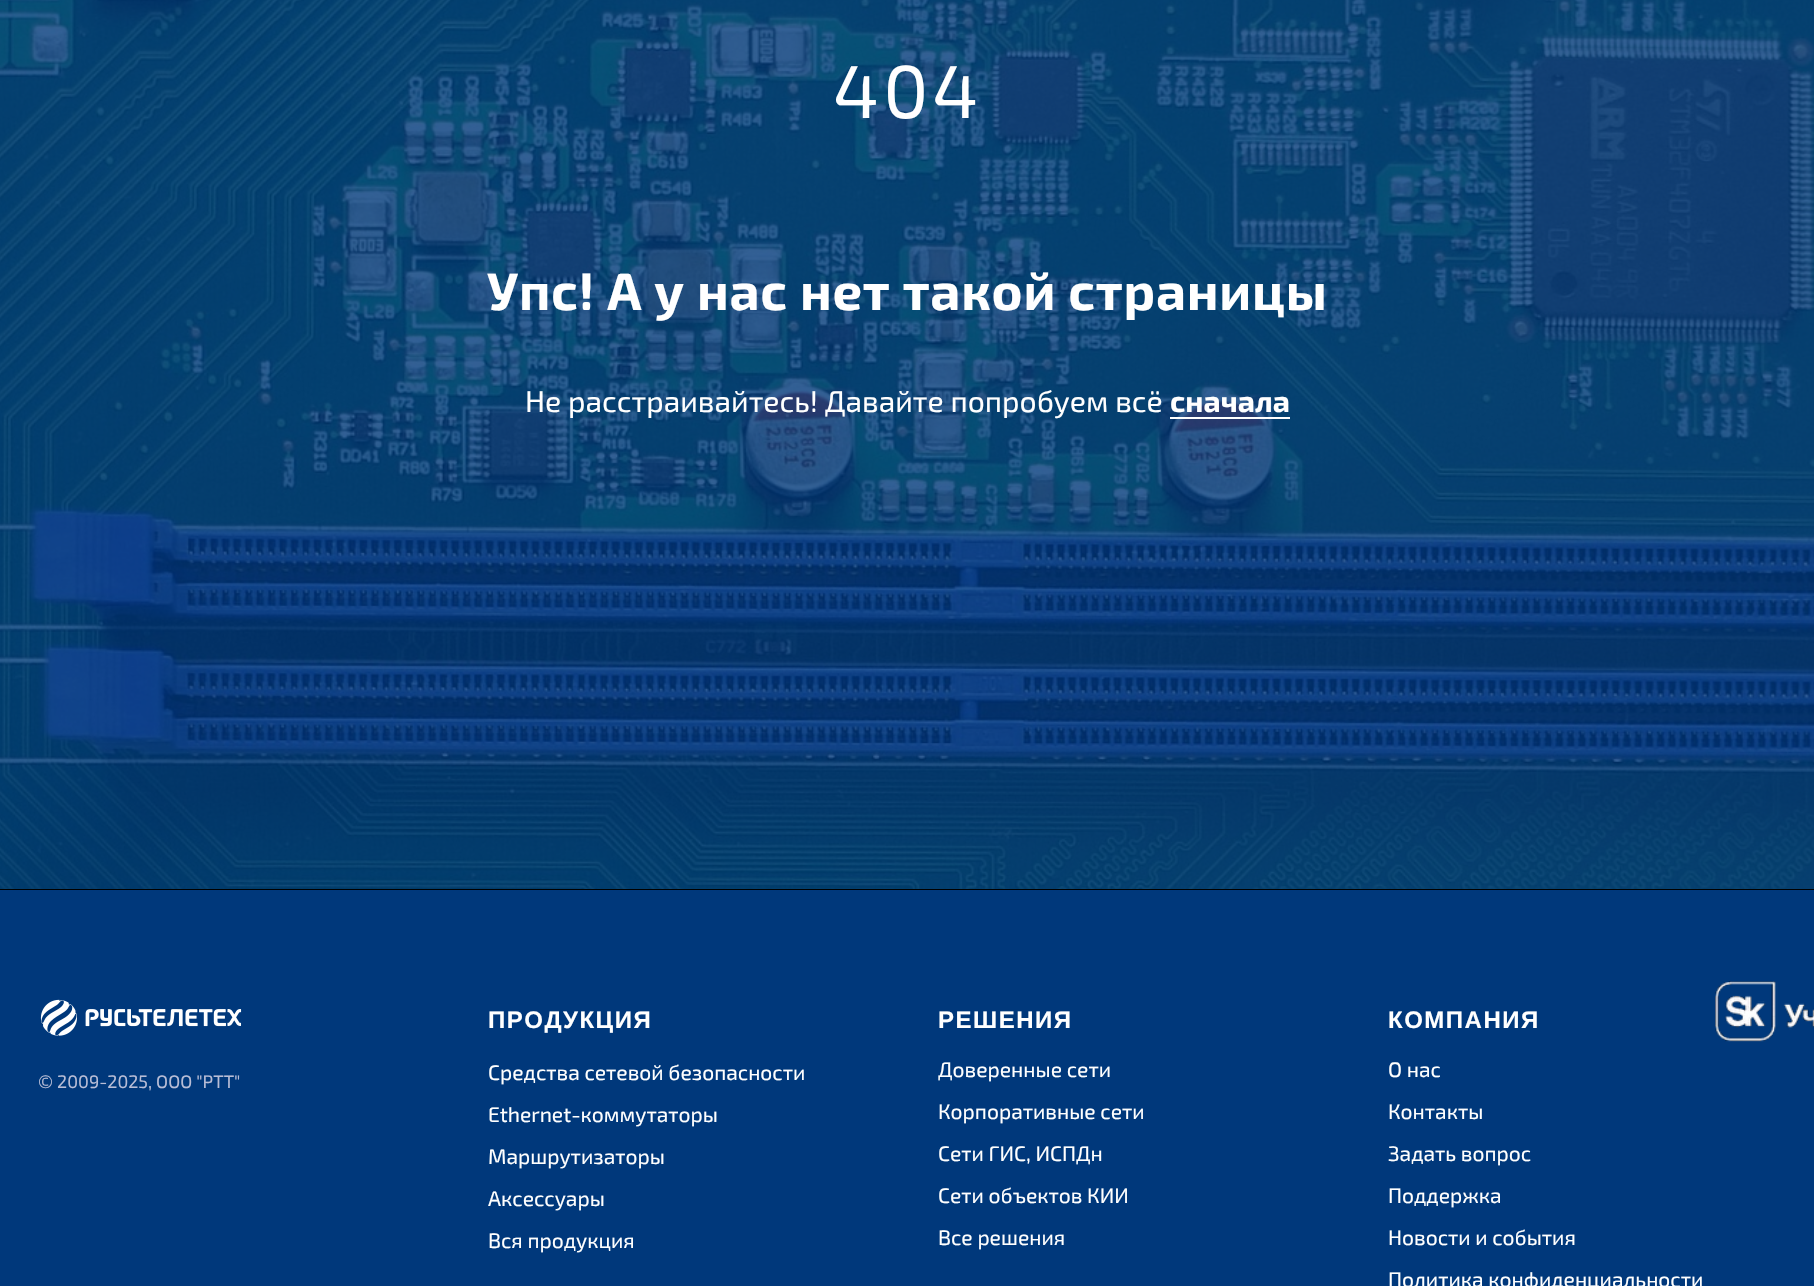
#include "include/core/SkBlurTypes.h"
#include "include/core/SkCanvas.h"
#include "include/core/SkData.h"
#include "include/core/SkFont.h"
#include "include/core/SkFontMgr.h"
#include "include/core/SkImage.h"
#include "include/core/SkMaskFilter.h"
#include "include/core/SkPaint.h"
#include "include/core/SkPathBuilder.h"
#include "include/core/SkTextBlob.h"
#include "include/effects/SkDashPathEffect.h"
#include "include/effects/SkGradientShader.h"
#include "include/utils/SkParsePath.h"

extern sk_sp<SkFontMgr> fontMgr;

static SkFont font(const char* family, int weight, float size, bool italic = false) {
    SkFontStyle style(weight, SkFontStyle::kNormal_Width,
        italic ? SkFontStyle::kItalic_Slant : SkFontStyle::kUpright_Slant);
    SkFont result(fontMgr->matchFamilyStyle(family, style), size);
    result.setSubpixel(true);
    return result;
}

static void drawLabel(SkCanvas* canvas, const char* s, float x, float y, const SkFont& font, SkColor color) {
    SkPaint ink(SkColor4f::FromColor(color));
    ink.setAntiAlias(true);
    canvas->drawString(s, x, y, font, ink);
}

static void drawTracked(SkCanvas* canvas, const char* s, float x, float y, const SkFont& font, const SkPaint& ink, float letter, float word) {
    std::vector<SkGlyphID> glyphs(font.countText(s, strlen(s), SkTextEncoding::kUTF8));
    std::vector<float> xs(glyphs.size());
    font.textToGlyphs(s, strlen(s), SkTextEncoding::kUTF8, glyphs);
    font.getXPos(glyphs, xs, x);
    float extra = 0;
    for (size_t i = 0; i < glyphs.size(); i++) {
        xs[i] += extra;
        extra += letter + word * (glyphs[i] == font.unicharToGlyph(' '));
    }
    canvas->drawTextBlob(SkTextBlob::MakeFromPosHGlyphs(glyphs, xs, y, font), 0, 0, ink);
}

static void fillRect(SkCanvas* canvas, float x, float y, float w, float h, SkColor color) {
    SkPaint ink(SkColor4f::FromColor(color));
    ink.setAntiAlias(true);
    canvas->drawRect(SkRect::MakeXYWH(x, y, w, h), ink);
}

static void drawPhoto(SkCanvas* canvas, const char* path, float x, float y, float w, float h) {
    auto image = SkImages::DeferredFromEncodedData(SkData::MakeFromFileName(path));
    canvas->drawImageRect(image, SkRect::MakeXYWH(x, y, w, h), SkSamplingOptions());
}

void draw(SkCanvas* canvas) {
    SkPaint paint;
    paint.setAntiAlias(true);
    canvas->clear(0xFF00387B);
    fillRect(canvas, 0, 889, 1814, 1, 0xFF000000);
    drawPhoto(canvas, "assets/img1.png", 0, 0, 1814, 889);
    SkFont font1 = font("Exo 2", 400, 75);
    paint.setColor(0xFFFFFFFF);
    drawTracked(canvas, "404", 833, 118, font1, paint, 4, 0);
    SkFont font2 = font("Exo 2", 700, 52.5f);
    drawTracked(canvas, "Упс! А у нас нет такой страницы", 487, 310, font2, paint, 0.75f, 0);
    SkFont font3 = font("Exo 2", 400, 30);
    drawLabel(canvas, "Не расстраивайтесь! Давайте попробуем всё", 525, 412, font3, 0xFFFFFFFF);
    SkFont font4 = font("Exo 2", 700, 30);
    drawLabel(canvas, "сначала", 1170, 412, font4, 0xFFFFFFFF);
    fillRect(canvas, 1170, 417, 120, 2, 0xFFFFFFFF);
    drawPhoto(canvas, "assets/img2.png", 40, 999, 202, 37);
    SkFont font5 = font("Liberation Sans", 700, 24);
    drawTracked(canvas, "ПРОДУКЦИЯ", 488, 1028, font5, paint, 1.5f, 0);
    drawTracked(canvas, "РЕШЕНИЯ", 938, 1028, font5, paint, 1.5f, 0);
    drawTracked(canvas, "КОМПАНИЯ", 1388, 1028, font5, paint, 1.5f, 0);
    drawPhoto(canvas, "assets/img3.png", 1715, 981, 99, 61);
    SkFont font6 = font("Exo 2", 400, 18);
    drawLabel(canvas, "© 2009-2025, ООО \"РТТ\"", 38, 1088, font6, 0xFFB8BDD6);
    SkFont font7 = font("Exo 2", 400, 21);
    drawLabel(canvas, "Средства сетевой безопасности", 488, 1080, font7, 0xFFFFFFFF);
    drawLabel(canvas, "Ethernet-коммутаторы", 488, 1122, font7, 0xFFFFFFFF);
    drawLabel(canvas, "Маршрутизаторы", 488, 1164, font7, 0xFFFFFFFF);
    drawLabel(canvas, "Аксессуары", 488, 1206, font7, 0xFFFFFFFF);
    drawLabel(canvas, "Вся продукция", 488, 1248, font7, 0xFFFFFFFF);
    drawLabel(canvas, "Доверенные сети", 938, 1077, font7, 0xFFFFFFFF);
    drawLabel(canvas, "Корпоративные сети", 938, 1119, font7, 0xFFFFFFFF);
    drawLabel(canvas, "Сети ГИС, ИСПДн", 938, 1161, font7, 0xFFFFFFFF);
    drawLabel(canvas, "Сети объектов КИИ", 938, 1203, font7, 0xFFFFFFFF);
    drawLabel(canvas, "Все решения", 938, 1245, font7, 0xFFFFFFFF);
    drawLabel(canvas, "О нас", 1388, 1077, font7, 0xFFFFFFFF);
    drawLabel(canvas, "Контакты", 1388, 1119, font7, 0xFFFFFFFF);
    drawLabel(canvas, "Задать вопрос", 1388, 1161, font7, 0xFFFFFFFF);
    drawLabel(canvas, "Поддержка", 1388, 1203, font7, 0xFFFFFFFF);
    drawLabel(canvas, "Новости и события", 1388, 1245, font7, 0xFFFFFFFF);
    drawLabel(canvas, "Политика конфиденциальности", 1388, 1287, font7, 0xFFFFFFFF);
}
